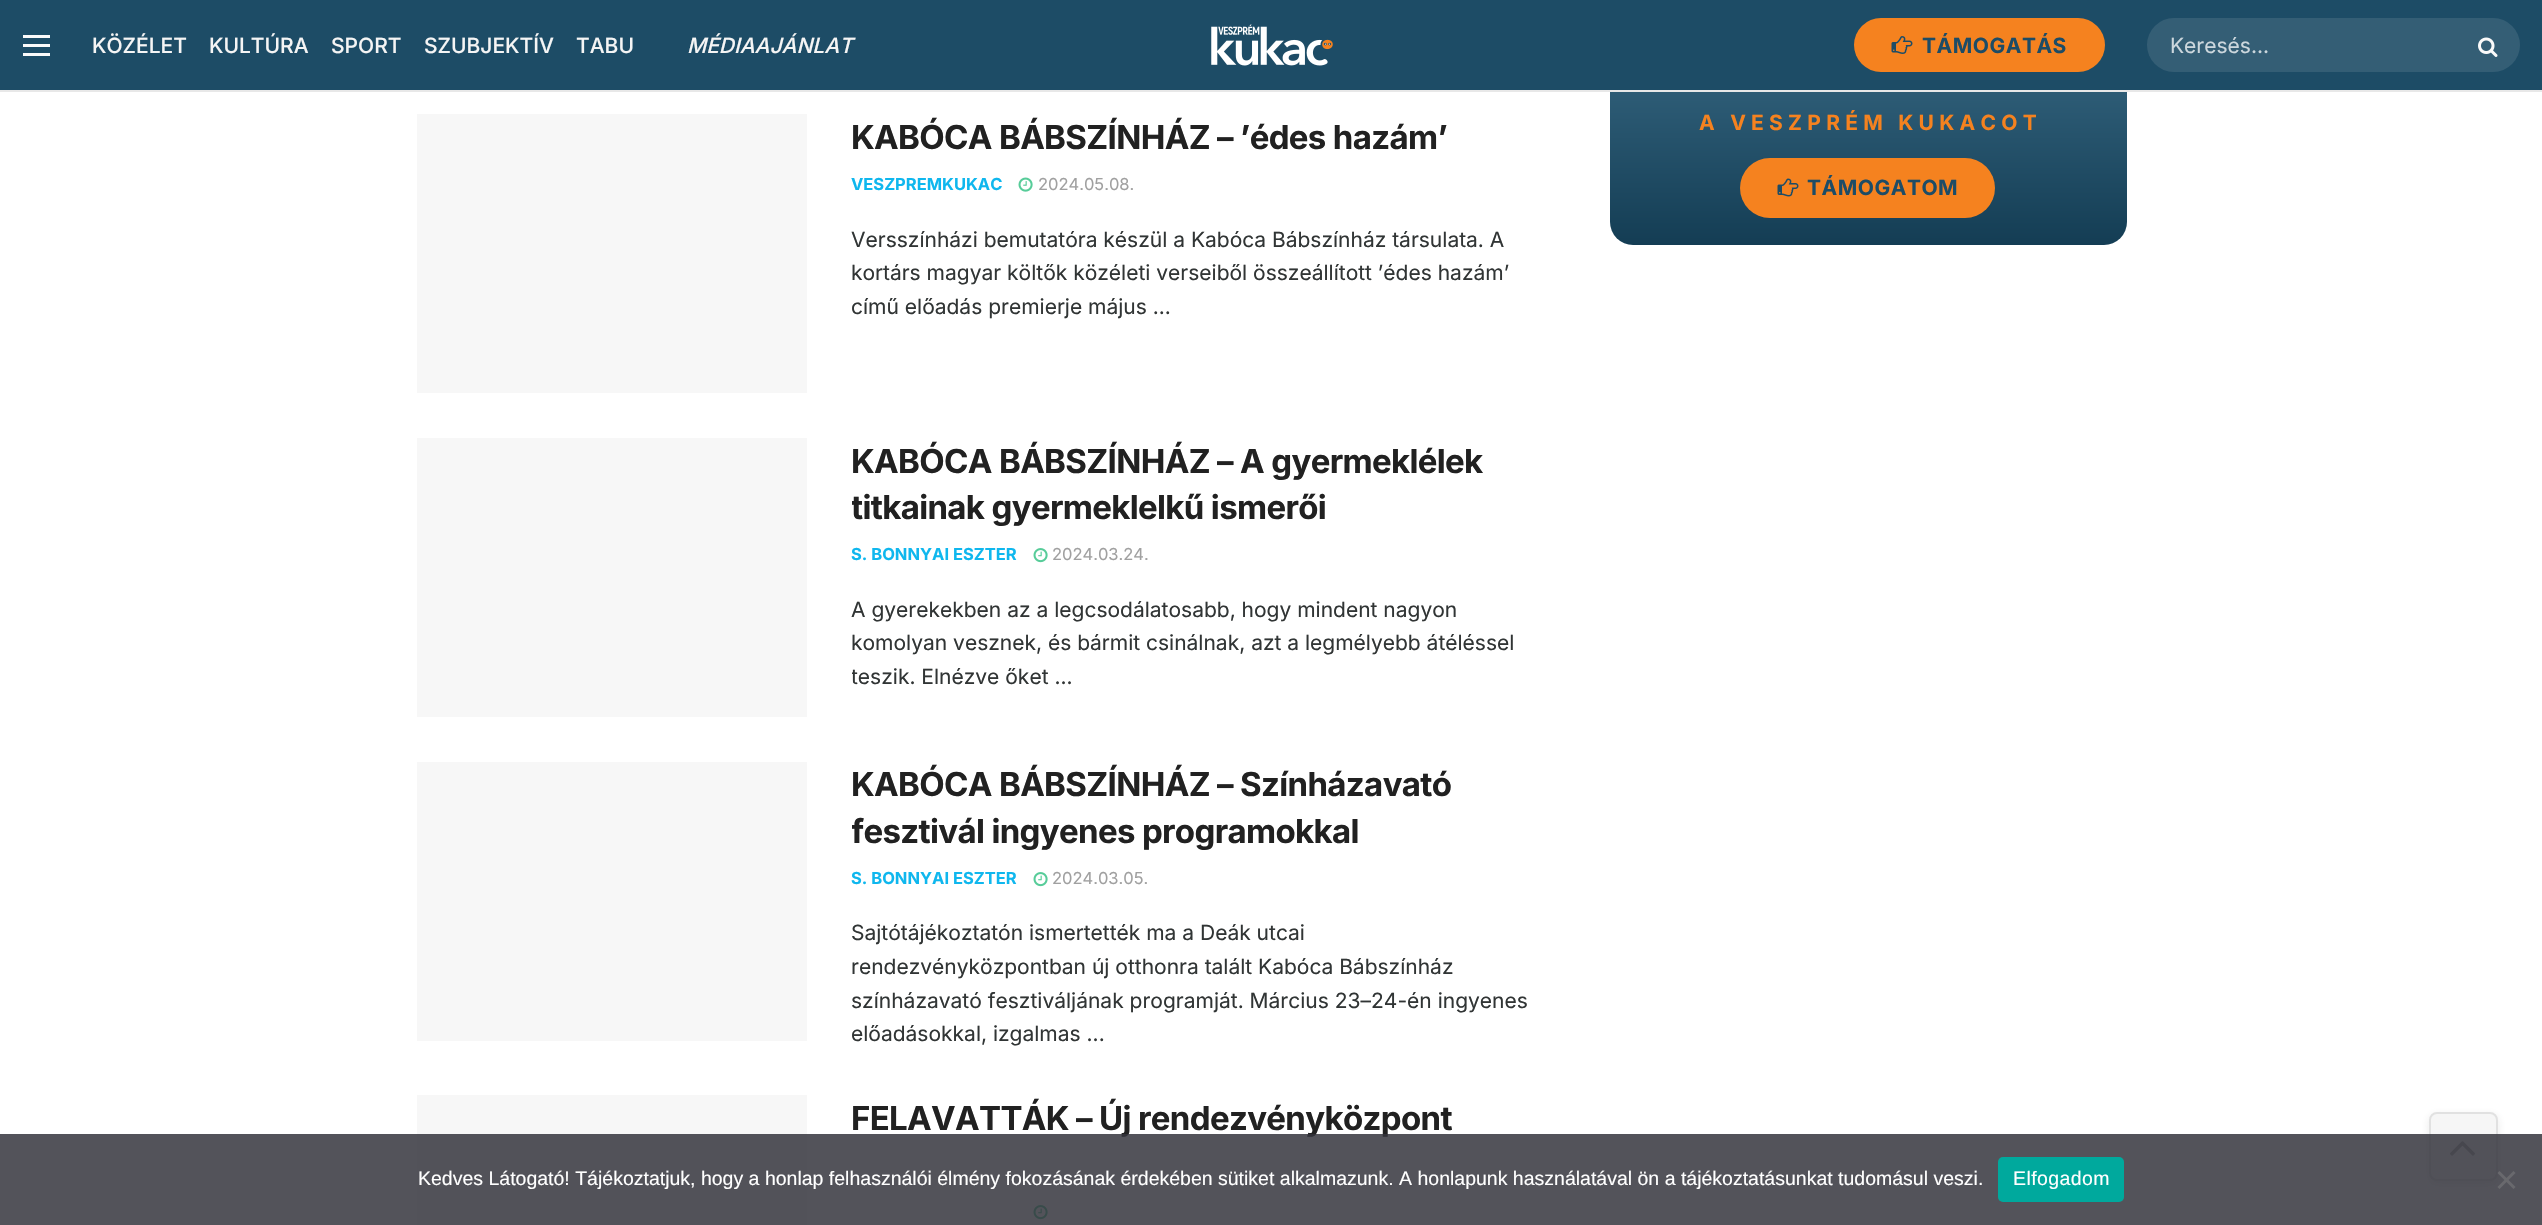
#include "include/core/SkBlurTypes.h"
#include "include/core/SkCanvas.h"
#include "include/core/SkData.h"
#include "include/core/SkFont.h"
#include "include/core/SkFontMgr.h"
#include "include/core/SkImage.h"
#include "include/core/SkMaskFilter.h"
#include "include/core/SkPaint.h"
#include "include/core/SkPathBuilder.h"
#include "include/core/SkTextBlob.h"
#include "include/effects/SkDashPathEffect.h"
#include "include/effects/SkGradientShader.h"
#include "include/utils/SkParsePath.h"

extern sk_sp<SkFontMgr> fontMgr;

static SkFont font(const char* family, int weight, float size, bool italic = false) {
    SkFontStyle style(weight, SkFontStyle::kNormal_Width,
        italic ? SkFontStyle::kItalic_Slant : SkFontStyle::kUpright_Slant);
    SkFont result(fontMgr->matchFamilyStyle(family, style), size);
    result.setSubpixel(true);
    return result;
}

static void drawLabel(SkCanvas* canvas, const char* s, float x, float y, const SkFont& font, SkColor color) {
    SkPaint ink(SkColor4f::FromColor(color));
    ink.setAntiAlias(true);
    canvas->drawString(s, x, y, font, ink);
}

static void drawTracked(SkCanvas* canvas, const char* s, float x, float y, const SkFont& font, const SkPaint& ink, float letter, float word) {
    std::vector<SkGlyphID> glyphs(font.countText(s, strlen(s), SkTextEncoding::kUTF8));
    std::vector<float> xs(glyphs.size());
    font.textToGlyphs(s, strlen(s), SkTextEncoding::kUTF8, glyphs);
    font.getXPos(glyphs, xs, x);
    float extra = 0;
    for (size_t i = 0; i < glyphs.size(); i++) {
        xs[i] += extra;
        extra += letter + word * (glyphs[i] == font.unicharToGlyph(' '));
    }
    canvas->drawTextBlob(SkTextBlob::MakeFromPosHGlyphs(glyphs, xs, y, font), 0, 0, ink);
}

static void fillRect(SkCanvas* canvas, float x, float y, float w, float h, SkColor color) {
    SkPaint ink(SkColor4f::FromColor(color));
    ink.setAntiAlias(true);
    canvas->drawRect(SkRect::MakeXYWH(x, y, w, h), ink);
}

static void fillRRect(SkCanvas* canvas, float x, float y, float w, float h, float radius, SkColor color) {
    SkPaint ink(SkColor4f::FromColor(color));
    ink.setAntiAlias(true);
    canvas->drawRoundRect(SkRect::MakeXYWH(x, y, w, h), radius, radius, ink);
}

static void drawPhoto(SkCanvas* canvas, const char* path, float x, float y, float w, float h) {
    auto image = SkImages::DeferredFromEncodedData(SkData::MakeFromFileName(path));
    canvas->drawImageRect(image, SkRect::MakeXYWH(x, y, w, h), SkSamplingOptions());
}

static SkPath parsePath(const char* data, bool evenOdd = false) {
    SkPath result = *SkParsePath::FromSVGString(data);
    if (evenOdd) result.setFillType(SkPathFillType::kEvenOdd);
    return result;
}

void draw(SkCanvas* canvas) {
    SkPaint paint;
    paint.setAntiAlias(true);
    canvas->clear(0xFFFFFFFF);
    {
        const SkColor colors[] = {0xFF143D54, 0xFF376883};
        const float stops[] = {0, 1};
        const SkPoint ends[] = {{1868, 245}, {1868, 30}};
        paint.setShader(SkGradientShader::MakeLinear(ends, colors, stops, 2, SkTileMode::kClamp));
        paint.setAlpha(255);
    }
    canvas->drawRoundRect(SkRect::MakeXYWH(1610, 30, 517, 215), 23, 23, paint);
    fillRect(canvas, 0, 0, 2542, 90, 0xFF1D4C66);
    fillRect(canvas, 0, 90, 2542, 2, 0xFFE8E8E8);
    fillRect(canvas, 23, 35, 27, 3, 0xFFFAFAFA);
    fillRect(canvas, 23, 44, 27, 3, 0xFFFAFAFA);
    fillRect(canvas, 23, 53, 27, 3, 0xFFFAFAFA);
    SkFont font1 = font("Inter", 500, 21);
    drawLabel(canvas, "KÖZÉLET", 92, 53, font1, 0xFFF5F5F5);
    drawLabel(canvas, "KULTÚRA", 209, 53, font1, 0xFFF5F5F5);
    drawLabel(canvas, "SPORT", 331, 53, font1, 0xFFF5F5F5);
    drawLabel(canvas, "SZUBJEKTÍV", 424, 53, font1, 0xFFF5F5F5);
    drawLabel(canvas, "TABU", 576, 53, font1, 0xFFF5F5F5);
    SkFont font2 = font("Inter", 500, 21, true);
    drawLabel(canvas, "MÉDIAAJÁNLAT", 687, 53, font2, 0xFFF5F5F5);
    drawPhoto(canvas, "assets/img1.png", 1211, 24, 122, 42);
    fillRRect(canvas, 1854, 18, 251, 54, 27, 0xFFF5821F);
    drawPhoto(canvas, "assets/img2.png", 1891, 36, 22, 18);
    SkFont font3 = font("Inter", 700, 21);
    paint.setShader(nullptr);
    paint.setColor(0xFF1D4C66);
    drawTracked(canvas, "TÁMOGATÁS", 1922, 53, font3, paint, 0.5f, 0);
    fillRRect(canvas, 2147, 18, 373, 54, 27, 0xFF345E75);
    SkFont font4 = font("Inter", 400, 21);
    drawLabel(canvas, "Keresés...", 2170, 53, font4, 0xFFCCD7DD);
    drawPhoto(canvas, "assets/img3.png", 2478, 37, 20, 20);
    fillRect(canvas, 417, 114, 390, 279, 0xFFF7F7F7);
    SkFont font5 = font("Inter", 700, 33);
    paint.setColor(0xFF212121);
    drawTracked(canvas, "KABÓCA BÁBSZÍNHÁZ – ’édes hazám’", 851, 149, font5, paint, -0.65f, 0);
    SkFont font6 = font("Inter", 700, 16.5f);
    drawLabel(canvas, "VESZPREMKUKAC", 851, 190, font6, 0xFF0FB7EE);
    drawPhoto(canvas, "assets/img4.png", 1018, 177, 15, 15);
    SkFont font7 = font("Inter", 400, 16.5f);
    drawLabel(canvas, "2024.05.08.", 1038, 190, font7, 0xFFA0A0A0);
    drawLabel(canvas, "Versszínházi bemutatóra készül a Kabóca Bábszínház társulata. A", 851, 247, font4, 0xFF313535);
    drawLabel(canvas, "kortárs magyar költők közéleti verseiből összeállított ’édes hazám’", 851, 280, font4, 0xFF313535);
    drawLabel(canvas, "című előadás premierje május ...", 851, 314, font4, 0xFF313535);
    fillRect(canvas, 417, 438, 390, 279, 0xFFF7F7F7);
    drawTracked(canvas, "KABÓCA BÁBSZÍNHÁZ – A gyermeklélek", 851, 473, font5, paint, -0.65f, 0);
    canvas->save();
    canvas->clipRect(SkRect::MakeXYWH(852, 438, 690, 255));
    drawTracked(canvas, "titkainak gyermeklelkű ismerői", 851, 519, font5, paint, -0.65f, 0);
    canvas->restore();
    drawLabel(canvas, "S. BONNYAI ESZTER", 851, 560, font6, 0xFF0FB7EE);
    drawPhoto(canvas, "assets/img5.png", 1033, 548, 15, 15);
    drawLabel(canvas, "2024.03.24.", 1052, 560, font7, 0xFFA0A0A0);
    drawLabel(canvas, "A gyerekekben az a legcsodálatosabb, hogy mindent nagyon", 851, 617, font4, 0xFF313535);
    drawLabel(canvas, "komolyan vesznek, és bármit csinálnak, azt a legmélyebb átéléssel", 851, 650, font4, 0xFF313535);
    canvas->save();
    canvas->clipRect(SkRect::MakeXYWH(852, 438, 690, 255));
    drawLabel(canvas, "teszik. Elnézve őket ...", 851, 684, font4, 0xFF313535);
    canvas->restore();
    fillRect(canvas, 417, 762, 390, 279, 0xFFF7F7F7);
    drawTracked(canvas, "KABÓCA BÁBSZÍNHÁZ – Színházavató", 851, 796, font5, paint, -0.65f, 0);
    canvas->save();
    canvas->clipRect(SkRect::MakeXYWH(852, 762, 690, 288));
    drawTracked(canvas, "fesztivál ingyenes programokkal", 851, 843, font5, paint, -0.65f, 0);
    canvas->restore();
    drawLabel(canvas, "S. BONNYAI ESZTER", 851, 884, font6, 0xFF0FB7EE);
    drawPhoto(canvas, "assets/img5.png", 1033, 872, 15, 15);
    drawLabel(canvas, "2024.03.05.", 1052, 884, font7, 0xFFA0A0A0);
    drawLabel(canvas, "Sajtótájékoztatón ismertették ma a Deák utcai", 851, 940, font4, 0xFF313535);
    drawLabel(canvas, "rendezvényközpontban új otthonra talált Kabóca Bábszínház", 851, 974, font4, 0xFF313535);
    drawLabel(canvas, "színházavató fesztiváljának programját. Március 23–24-én ingyenes", 851, 1008, font4, 0xFF313535);
    drawLabel(canvas, "előadásokkal, izgalmas ...", 851, 1041, font4, 0xFF313535);
    fillRect(canvas, 417, 1095, 390, 130, 0xFFF7F7F7);
    drawTracked(canvas, "FELAVATTÁK – Új rendezvényközpont", 851, 1130, font5, paint, -0.65f, 0);
    drawPhoto(canvas, "assets/img5.png", 1033, 1205, 15, 15);
    paint.setColor(0xFFF5821F);
    drawTracked(canvas, "A VESZPRÉM KUKACOT", 1699, 130, font3, paint, 5.25f, 0);
    fillRRect(canvas, 1740, 158, 255, 60, 30, 0xFFF5821F);
    drawPhoto(canvas, "assets/img6.png", 1777, 178, 22, 19);
    paint.setColor(0xFF1D4C66);
    drawTracked(canvas, "TÁMOGATOM", 1807, 195, font3, paint, 0.5f, 0);
    canvas->save();
    canvas->clipPath(parsePath("M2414 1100H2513V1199H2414ZM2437 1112H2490C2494.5 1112 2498 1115.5 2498 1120V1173C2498 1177.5 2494.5 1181 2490 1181H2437C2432.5 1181 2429 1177.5 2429 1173V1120C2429 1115.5 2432.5 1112 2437 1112Z", true), true);
    paint.setColor(0x1A333333);
    paint.setMaskFilter(SkMaskFilter::MakeBlur(kNormal_SkBlurStyle, 4.5f));
    canvas->drawRoundRect(SkRect::MakeXYWH(2429, 1115, 69, 69), 8, 8, paint);
    paint.setMaskFilter(nullptr);
    canvas->restore();
    fillRRect(canvas, 2429, 1112, 69, 69, 8, 0x26C3C3C3);
    paint.setStroke(true);
    paint.setStrokeWidth(2);
    paint.setColor(0x1C333333);
    canvas->drawRoundRect(SkRect::MakeXYWH(2430, 1113, 67, 67), 7, 7, paint);
    drawPhoto(canvas, "assets/img7.png", 2450, 1141, 25, 15);
    fillRect(canvas, 0, 1134, 2542, 91, 0xD632323A);
    SkFont font8 = font("Liberation Sans", 400, 19.5f);
    drawLabel(canvas, "Kedves Látogató! Tájékoztatjuk, hogy a honlap felhasználói élmény fokozásának érdekében sütiket alkalmazunk. A honlapunk használatával ön a tájékoztatásunkat tudomásul veszi.", 418, 1185, font8, 0xFFFFFFFF);
    fillRRect(canvas, 1998, 1157, 126, 45, 5, 0xFF00A99D);
    paint.setStroke(false);
    paint.setColor(0xFFFFFFFF);
    drawTracked(canvas, "Elfogadom", 2013, 1185, font8, paint, 0.4f, 0);
    paint.setColor(0xFF69696D);
    canvas->drawPath(parsePath("M2513.5 1171L2515.5 1173L2499.5 1189L2497.5 1187Z"), paint);
    canvas->drawPath(parsePath("M2497.5 1173L2499.5 1171L2515.5 1187L2513.5 1189Z"), paint);
}
